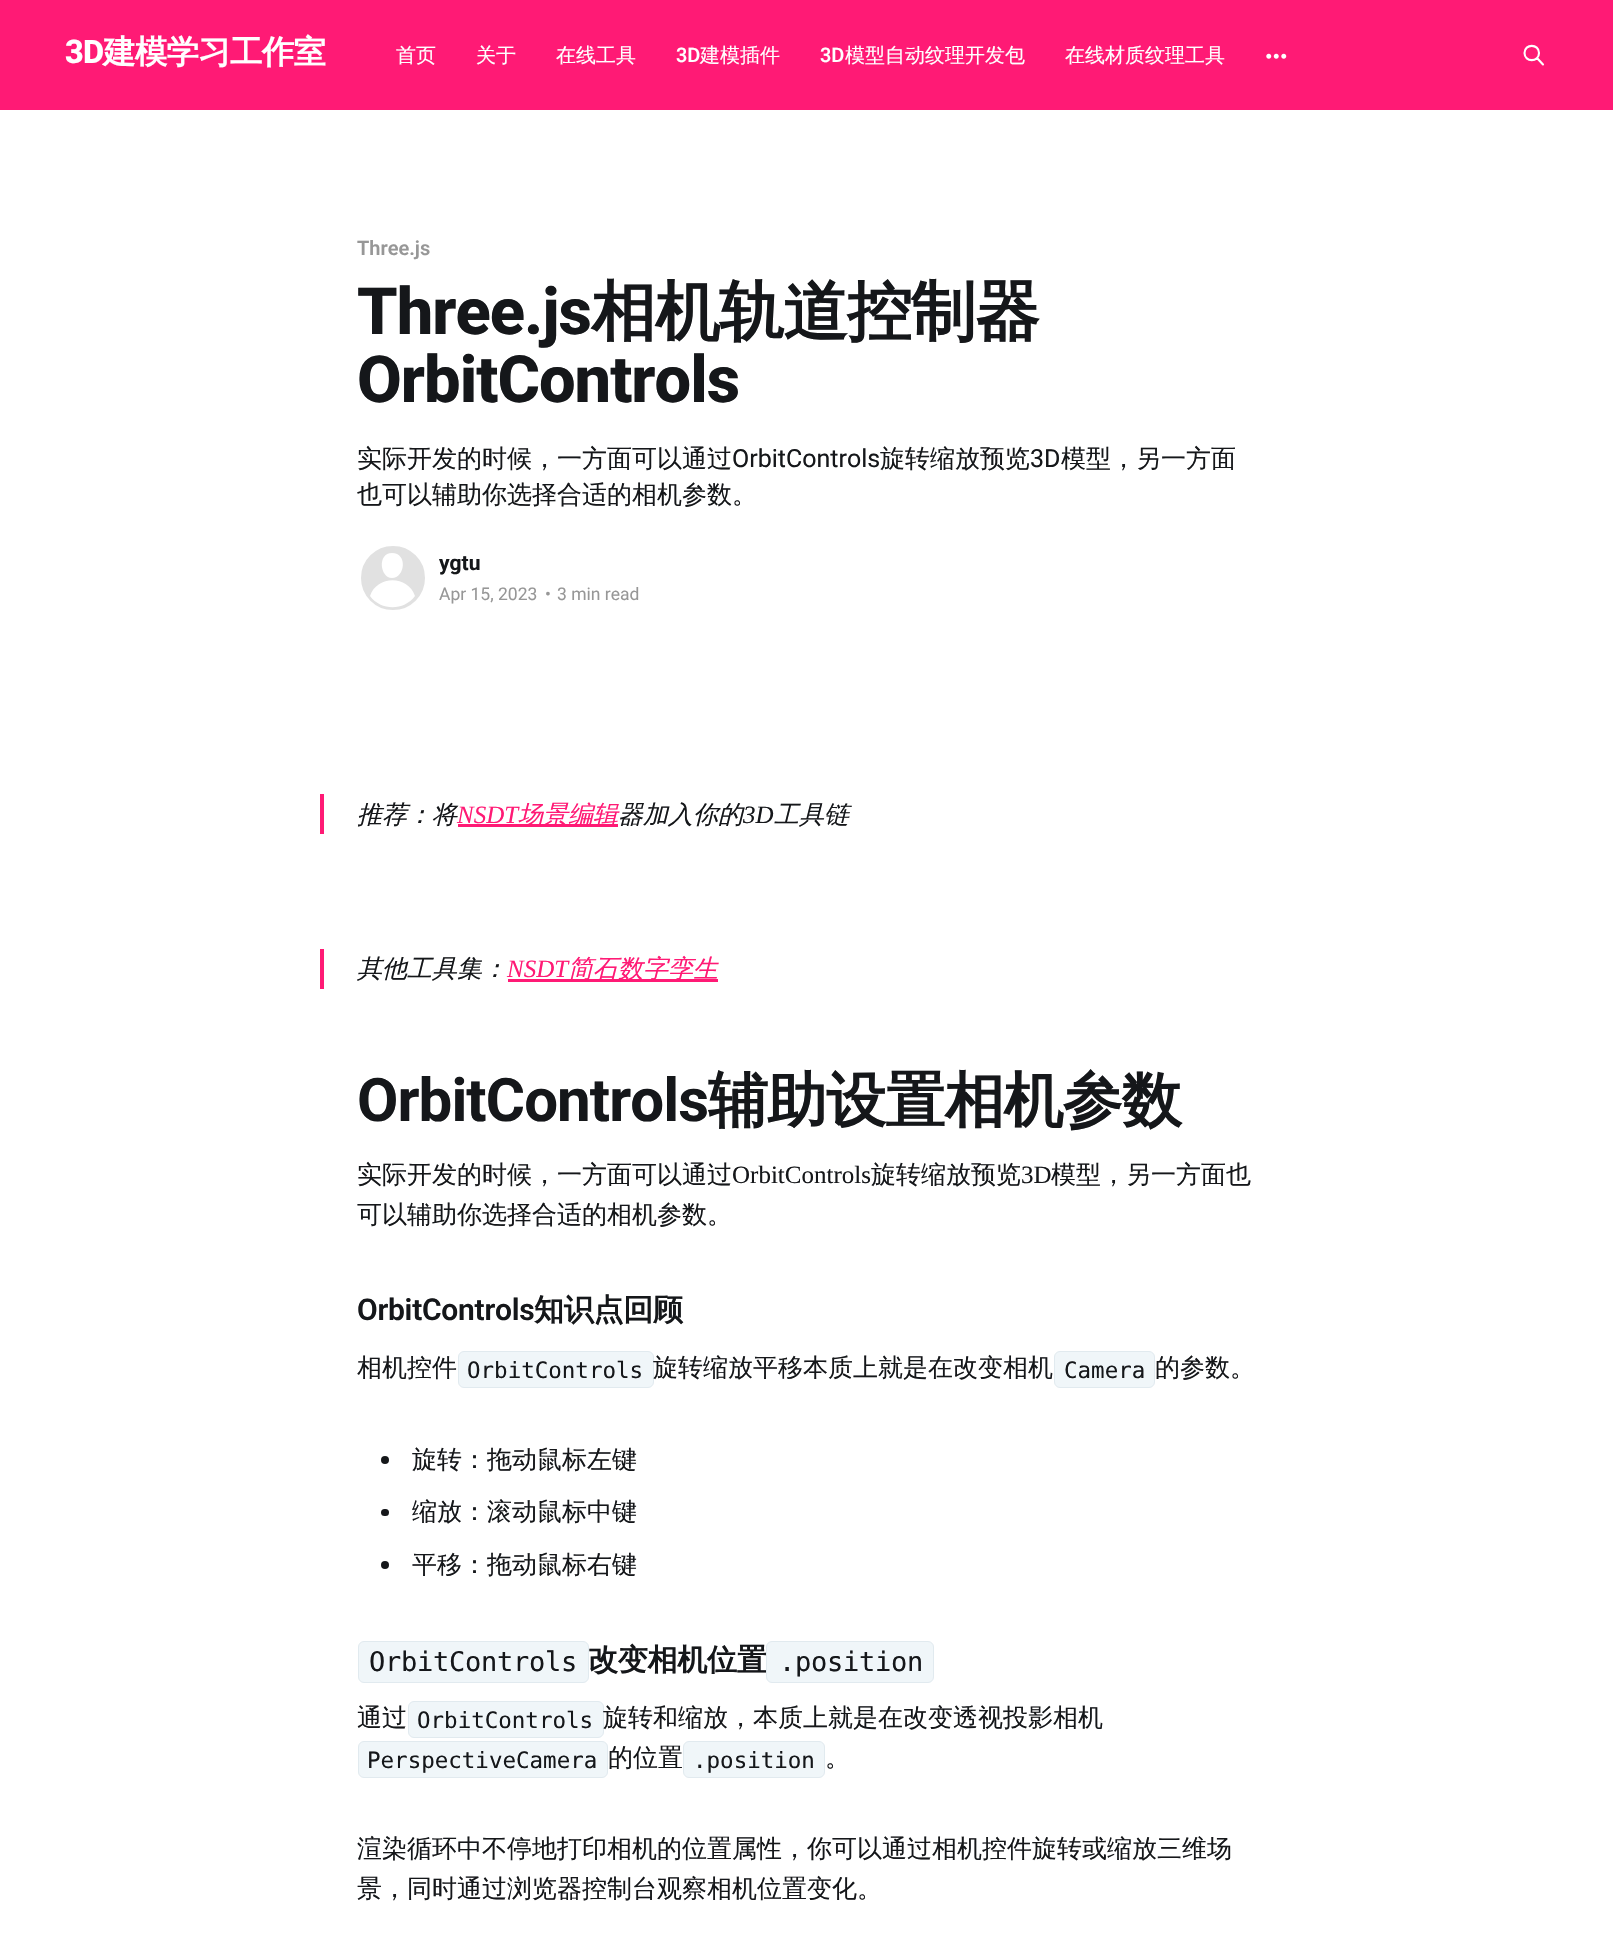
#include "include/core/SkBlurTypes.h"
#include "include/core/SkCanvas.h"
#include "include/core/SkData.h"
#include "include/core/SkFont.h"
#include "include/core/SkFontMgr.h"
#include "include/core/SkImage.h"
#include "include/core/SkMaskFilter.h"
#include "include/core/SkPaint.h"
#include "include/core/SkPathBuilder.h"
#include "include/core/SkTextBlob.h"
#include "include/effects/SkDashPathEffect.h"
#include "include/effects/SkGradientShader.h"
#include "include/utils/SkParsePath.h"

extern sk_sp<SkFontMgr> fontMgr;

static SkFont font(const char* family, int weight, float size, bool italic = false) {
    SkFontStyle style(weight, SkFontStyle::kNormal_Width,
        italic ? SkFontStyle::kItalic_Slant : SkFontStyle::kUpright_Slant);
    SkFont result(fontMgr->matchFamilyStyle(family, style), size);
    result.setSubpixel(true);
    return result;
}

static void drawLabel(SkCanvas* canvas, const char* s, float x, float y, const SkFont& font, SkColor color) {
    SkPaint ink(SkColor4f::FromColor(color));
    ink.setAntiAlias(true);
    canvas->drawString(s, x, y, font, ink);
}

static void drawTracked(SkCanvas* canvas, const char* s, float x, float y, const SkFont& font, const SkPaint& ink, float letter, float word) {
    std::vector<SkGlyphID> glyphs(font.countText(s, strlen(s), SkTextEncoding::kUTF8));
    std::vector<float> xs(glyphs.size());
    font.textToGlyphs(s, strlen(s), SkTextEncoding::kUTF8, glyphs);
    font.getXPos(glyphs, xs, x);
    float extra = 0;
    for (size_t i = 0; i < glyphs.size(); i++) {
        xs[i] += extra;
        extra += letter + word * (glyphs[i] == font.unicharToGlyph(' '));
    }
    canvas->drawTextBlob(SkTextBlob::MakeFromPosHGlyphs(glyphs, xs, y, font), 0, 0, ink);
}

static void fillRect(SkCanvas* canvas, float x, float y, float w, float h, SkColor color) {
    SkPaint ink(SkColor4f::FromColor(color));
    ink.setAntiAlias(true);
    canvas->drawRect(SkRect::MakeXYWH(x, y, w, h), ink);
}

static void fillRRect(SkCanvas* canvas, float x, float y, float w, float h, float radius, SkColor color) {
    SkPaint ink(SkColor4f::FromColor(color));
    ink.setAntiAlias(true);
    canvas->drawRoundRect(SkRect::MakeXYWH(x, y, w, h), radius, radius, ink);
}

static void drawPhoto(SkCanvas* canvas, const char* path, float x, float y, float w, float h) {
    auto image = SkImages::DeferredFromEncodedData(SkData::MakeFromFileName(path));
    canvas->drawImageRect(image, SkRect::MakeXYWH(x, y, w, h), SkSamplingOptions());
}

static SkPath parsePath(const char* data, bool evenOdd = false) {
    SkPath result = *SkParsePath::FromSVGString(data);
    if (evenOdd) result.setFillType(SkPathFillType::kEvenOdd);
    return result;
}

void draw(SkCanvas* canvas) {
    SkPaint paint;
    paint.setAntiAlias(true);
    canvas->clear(0xFFFFFFFF);
    fillRect(canvas, 0, 0, 1613, 110, 0xFFFF1A75);
    SkFont font1 = font("Roboto", 800, 32.5f);
    paint.setColor(0xFFFFFFFF);
    drawTracked(canvas, "3D", 65, 63, font1, paint, -0.75f, 0);
    SkFont font2 = font("WenQuanYi Zen Hei", 700, 32.5f);
    drawTracked(canvas, "建模学习工作室", 103, 63, font2, paint, -0.75f, 0);
    SkFont font3 = font("WenQuanYi Zen Hei", 500, 20);
    drawLabel(canvas, "首页", 396, 62, font3, 0xFFFFFFFF);
    drawLabel(canvas, "关于", 476, 62, font3, 0xFFFFFFFF);
    drawLabel(canvas, "在线工具", 556, 62, font3, 0xFFFFFFFF);
    SkFont font4 = font("Roboto", 500, 20);
    drawLabel(canvas, "3D", 676, 62, font4, 0xFFFFFFFF);
    drawLabel(canvas, "建模插件", 700, 62, font3, 0xFFFFFFFF);
    drawLabel(canvas, "3D", 820, 62, font4, 0xFFFFFFFF);
    drawLabel(canvas, "模型自动纹理开发包", 845, 62, font3, 0xFFFFFFFF);
    drawLabel(canvas, "在线材质纹理工具", 1065, 62, font3, 0xFFFFFFFF);
    drawPhoto(canvas, "assets/img1.png", 1266, 53, 21, 6);
    paint.setStroke(true);
    paint.setStrokeWidth(2.1f);
    paint.setStrokeCap(SkPaint::kRound_Cap);
    paint.setStrokeJoin(SkPaint::kRound_Join);
    canvas->drawPath(parsePath("M1543 64.5L1537 58M1539 53C1539 62.5 1524.5 62.5 1524.5 53C1524.5 43.5 1539 43.5 1539 53Z"), paint);
    SkFont font5 = font("Roboto", 600, 20);
    drawLabel(canvas, "Three.js", 357, 255, font5, 0xFF979797);
    SkFont font6 = font("Roboto", 800, 65);
    paint.setStroke(false);
    paint.setColor(0xFF15171A);
    drawTracked(canvas, "Three.js", 357, 334, font6, paint, -1, 0);
    SkFont font7 = font("WenQuanYi Zen Hei", 700, 65);
    drawTracked(canvas, "相机轨道控制器", 591, 334, font7, paint, -1, 0);
    drawTracked(canvas, "OrbitControls", 357, 402, font6, paint, -1, 0);
    SkFont font8 = font("WenQuanYi Zen Hei", 500, 25);
    drawLabel(canvas, "实际开发的时候，一方面可以通过", 357, 467, font8, 0xFF15171A);
    SkFont font9 = font("Roboto", 400, 25);
    drawLabel(canvas, "OrbitControls", 732, 467, font9, 0xFF15171A);
    drawLabel(canvas, "旋转缩放预览", 880, 467, font8, 0xFF15171A);
    drawLabel(canvas, "3D", 1030, 467, font9, 0xFF15171A);
    drawLabel(canvas, "模型，另一方面", 1061, 467, font8, 0xFF15171A);
    drawLabel(canvas, "也可以辅助你选择合适的相机参数。", 357, 503, font8, 0xFF15171A);
    paint.setColor(0xFFE1E1E1);
    canvas->drawCircle(393, 578, 33.5f, paint);
    paint.setStroke(true);
    paint.setStrokeWidth(3);
    paint.setStrokeCap(SkPaint::kButt_Cap);
    paint.setStrokeJoin(SkPaint::kMiter_Join);
    paint.setColor(0xFFFFFFFF);
    canvas->drawCircle(393, 578, 33.5f, paint);
    paint.setStroke(false);
    canvas->drawPath(parsePath("M370 596C377 575 408 575 415 596C404 611 381 611 370 596ZM392 578C405 578 408 553 392 553C377 553 380 578 392 578Z", true), paint);
    SkFont font10 = font("Roboto", 700, 21);
    drawLabel(canvas, "ygtu", 439, 570, font10, 0xFF15171A);
    SkFont font11 = font("Roboto", 400, 17.5f);
    drawLabel(canvas, "Apr 15, 2023", 439, 600, font11, 0xFF979797);
    drawLabel(canvas, "•", 545, 600, font11, 0xFF979797);
    drawLabel(canvas, "3 min read", 557, 600, font11, 0xFF979797);
    fillRect(canvas, 320, 794, 4, 40, 0xFFFF1A75);
    SkFont font12 = font("WenQuanYi Zen Hei", 500, 25, true);
    drawLabel(canvas, "推荐：将", 357, 823, font12, 0xFF15171A);
    SkFont font13 = font("Liberation Serif", 400, 25, true);
    drawLabel(canvas, "NSDT", 457, 823, font13, 0xFFFF1A75);
    fillRect(canvas, 458, 824, 160, 3, 0xFFFF1A75);
    drawLabel(canvas, "场景编辑", 518, 823, font12, 0xFFFF1A75);
    drawLabel(canvas, "器加入你的", 618, 823, font12, 0xFF15171A);
    drawLabel(canvas, "3D", 743, 823, font13, 0xFF15171A);
    drawLabel(canvas, "工具链", 774, 823, font12, 0xFF15171A);
    fillRect(canvas, 320, 949, 4, 40, 0xFFFF1A75);
    drawLabel(canvas, "其他工具集：", 357, 977, font12, 0xFF15171A);
    drawLabel(canvas, "NSDT", 507, 977, font13, 0xFFFF1A75);
    fillRect(canvas, 508, 979, 210, 3, 0xFFFF1A75);
    drawLabel(canvas, "简石数字孪生", 568, 977, font12, 0xFFFF1A75);
    SkFont font14 = font("Roboto", 700, 60);
    paint.setColor(0xFF15171A);
    drawTracked(canvas, "OrbitControls", 357, 1121, font14, paint, -0.9f, 0);
    SkFont font15 = font("WenQuanYi Zen Hei", 700, 60);
    drawTracked(canvas, "辅助设置相机参数", 708, 1121, font15, paint, -0.9f, 0);
    drawLabel(canvas, "实际开发的时候，一方面可以通过", 357, 1183, font8, 0xFF15171A);
    SkFont font16 = font("Liberation Serif", 400, 25);
    drawLabel(canvas, "OrbitControls", 732, 1183, font16, 0xFF15171A);
    drawLabel(canvas, "旋转缩放预览", 871, 1183, font8, 0xFF15171A);
    drawLabel(canvas, "3D", 1021, 1183, font16, 0xFF15171A);
    drawLabel(canvas, "模型，另一方面也", 1051, 1183, font8, 0xFF15171A);
    drawLabel(canvas, "可以辅助你选择合适的相机参数。", 357, 1223, font8, 0xFF15171A);
    SkFont font17 = font("Roboto", 600, 30);
    drawTracked(canvas, "OrbitControls", 357, 1320, font17, paint, -0.25f, 0);
    SkFont font18 = font("WenQuanYi Zen Hei", 700, 30);
    drawTracked(canvas, "知识点回顾", 534, 1320, font18, paint, -0.25f, 0);
    drawLabel(canvas, "相机控件", 357, 1376, font8, 0xFF15171A);
    paint.setColor(0xFFF0F6F9);
    canvas->drawRoundRect(SkRect::MakeXYWH(458.5f, 1351.5f, 195, 36), 5.5f, 5.5f, paint);
    paint.setStroke(true);
    paint.setStrokeWidth(1);
    paint.setColor(0xFFE1EAEF);
    canvas->drawRoundRect(SkRect::MakeXYWH(458.5f, 1351.5f, 195, 36), 5.5f, 5.5f, paint);
    SkFont font19 = font("DejaVu Sans Mono", 400, 22.5f);
    drawLabel(canvas, "OrbitControls", 467, 1378, font19, 0xFF15171A);
    drawLabel(canvas, "旋转缩放平移本质上就是在改变相机", 653, 1376, font8, 0xFF15171A);
    paint.setStroke(false);
    paint.setColor(0xFFF0F6F9);
    canvas->drawRoundRect(SkRect::MakeXYWH(1054.5f, 1351.5f, 100, 36), 5.5f, 5.5f, paint);
    paint.setStroke(true);
    paint.setColor(0xFFE1EAEF);
    canvas->drawRoundRect(SkRect::MakeXYWH(1054.5f, 1351.5f, 100, 36), 5.5f, 5.5f, paint);
    drawLabel(canvas, "Camera", 1064, 1378, font19, 0xFF15171A);
    drawLabel(canvas, "的参数。", 1155, 1376, font8, 0xFF15171A);
    paint.setStroke(false);
    paint.setColor(0xFF15171A);
    canvas->drawCircle(385, 1460, 4, paint);
    drawLabel(canvas, "旋转：拖动鼠标左键", 412, 1468, font8, 0xFF15171A);
    fillRRect(canvas, 381, 1509, 8, 7, 3.5f, 0xFF15171A);
    drawLabel(canvas, "缩放：滚动鼠标中键", 412, 1520, font8, 0xFF15171A);
    canvas->drawCircle(385, 1565, 4, paint);
    drawLabel(canvas, "平移：拖动鼠标右键", 412, 1573, font8, 0xFF15171A);
    paint.setColor(0xFFF0F6F9);
    canvas->drawRoundRect(SkRect::MakeXYWH(358.5f, 1641.5f, 230, 41), 5.5f, 5.5f, paint);
    paint.setStroke(true);
    paint.setColor(0xFFE1EAEF);
    canvas->drawRoundRect(SkRect::MakeXYWH(358.5f, 1641.5f, 230, 41), 5.5f, 5.5f, paint);
    SkFont font20 = font("DejaVu Sans Mono", 400, 27);
    paint.setStroke(false);
    paint.setColor(0xFF15171A);
    drawTracked(canvas, "OrbitControls", 369, 1671, font20, paint, -0.25f, 0);
    drawTracked(canvas, "改变相机位置", 588, 1670, font18, paint, -0.25f, 0);
    paint.setColor(0xFFF0F6F9);
    canvas->drawRoundRect(SkRect::MakeXYWH(766.5f, 1641.5f, 167, 41), 5.5f, 5.5f, paint);
    paint.setStroke(true);
    paint.setColor(0xFFE1EAEF);
    canvas->drawRoundRect(SkRect::MakeXYWH(766.5f, 1641.5f, 167, 41), 5.5f, 5.5f, paint);
    paint.setStroke(false);
    paint.setColor(0xFF15171A);
    drawTracked(canvas, ".position", 779, 1671, font20, paint, -0.25f, 0);
    drawLabel(canvas, "通过", 357, 1726, font8, 0xFF15171A);
    paint.setColor(0xFFF0F6F9);
    canvas->drawRoundRect(SkRect::MakeXYWH(408.5f, 1701.5f, 195, 36), 5.5f, 5.5f, paint);
    paint.setStroke(true);
    paint.setColor(0xFFE1EAEF);
    canvas->drawRoundRect(SkRect::MakeXYWH(408.5f, 1701.5f, 195, 36), 5.5f, 5.5f, paint);
    drawLabel(canvas, "OrbitControls", 417, 1728, font19, 0xFF15171A);
    drawLabel(canvas, "旋转和缩放，本质上就是在改变透视投影相机", 603, 1726, font8, 0xFF15171A);
    paint.setStroke(false);
    paint.setColor(0xFFF0F6F9);
    canvas->drawRoundRect(SkRect::MakeXYWH(358.5f, 1741.5f, 249, 36), 5.5f, 5.5f, paint);
    paint.setStroke(true);
    paint.setColor(0xFFE1EAEF);
    canvas->drawRoundRect(SkRect::MakeXYWH(358.5f, 1741.5f, 249, 36), 5.5f, 5.5f, paint);
    drawLabel(canvas, "PerspectiveCamera", 367, 1768, font19, 0xFF15171A);
    drawLabel(canvas, "的位置", 608, 1766, font8, 0xFF15171A);
    paint.setStroke(false);
    paint.setColor(0xFFF0F6F9);
    canvas->drawRoundRect(SkRect::MakeXYWH(683.5f, 1741.5f, 141, 36), 5.5f, 5.5f, paint);
    paint.setStroke(true);
    paint.setColor(0xFFE1EAEF);
    canvas->drawRoundRect(SkRect::MakeXYWH(683.5f, 1741.5f, 141, 36), 5.5f, 5.5f, paint);
    drawLabel(canvas, ".position", 693, 1768, font19, 0xFF15171A);
    drawLabel(canvas, "。", 825, 1766, font8, 0xFF15171A);
    drawLabel(canvas, "渲染循环中不停地打印相机的位置属性，你可以通过相机控件旋转或缩放三维场", 357, 1857, font8, 0xFF15171A);
    drawLabel(canvas, "景，同时通过浏览器控制台观察相机位置变化。", 357, 1897, font8, 0xFF15171A);
}
